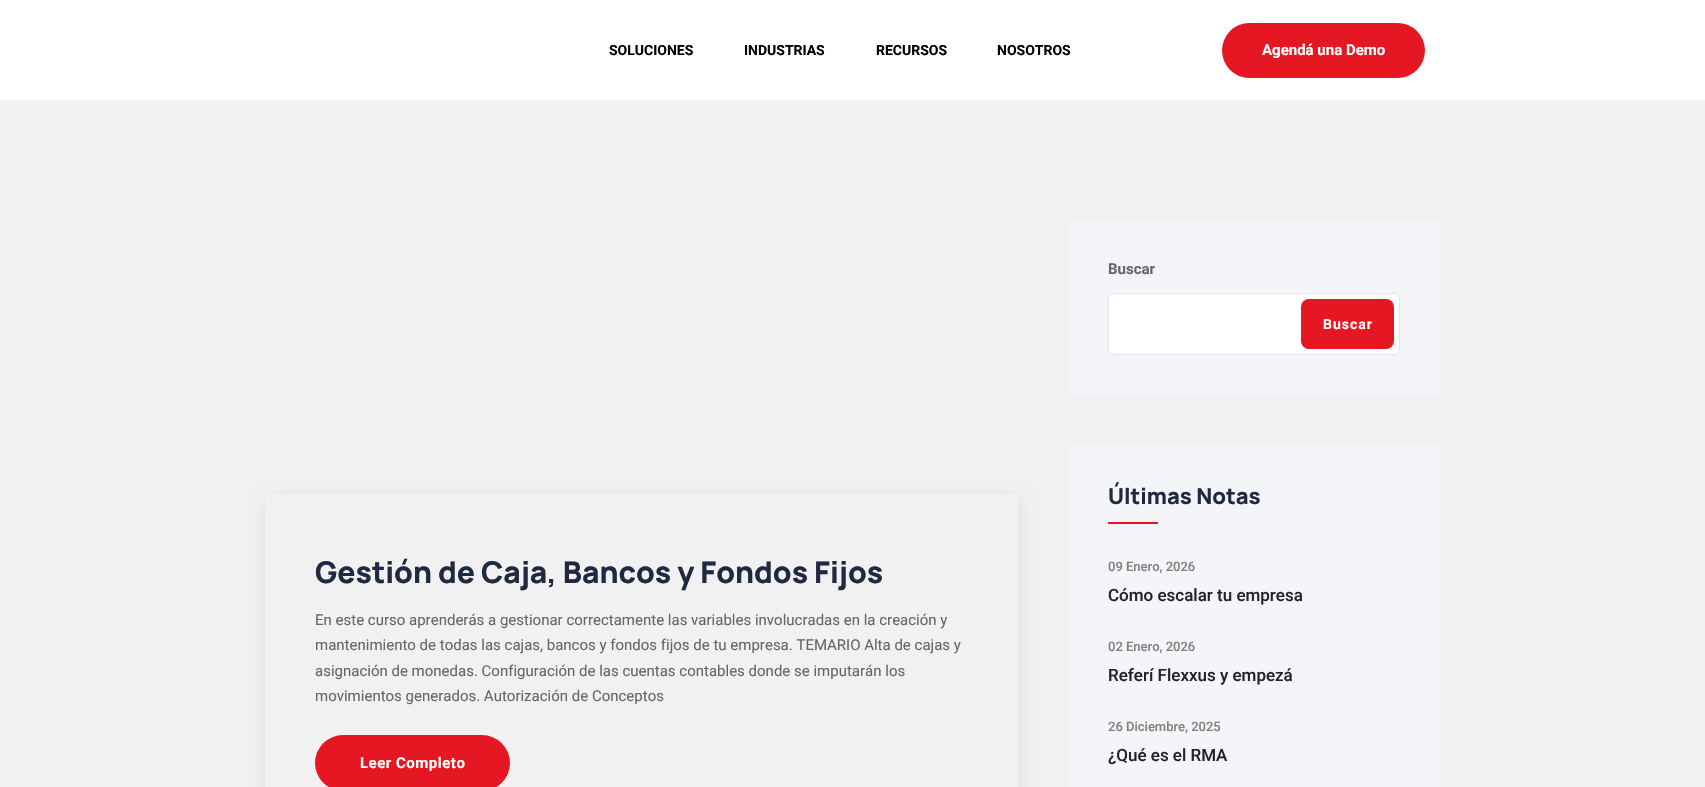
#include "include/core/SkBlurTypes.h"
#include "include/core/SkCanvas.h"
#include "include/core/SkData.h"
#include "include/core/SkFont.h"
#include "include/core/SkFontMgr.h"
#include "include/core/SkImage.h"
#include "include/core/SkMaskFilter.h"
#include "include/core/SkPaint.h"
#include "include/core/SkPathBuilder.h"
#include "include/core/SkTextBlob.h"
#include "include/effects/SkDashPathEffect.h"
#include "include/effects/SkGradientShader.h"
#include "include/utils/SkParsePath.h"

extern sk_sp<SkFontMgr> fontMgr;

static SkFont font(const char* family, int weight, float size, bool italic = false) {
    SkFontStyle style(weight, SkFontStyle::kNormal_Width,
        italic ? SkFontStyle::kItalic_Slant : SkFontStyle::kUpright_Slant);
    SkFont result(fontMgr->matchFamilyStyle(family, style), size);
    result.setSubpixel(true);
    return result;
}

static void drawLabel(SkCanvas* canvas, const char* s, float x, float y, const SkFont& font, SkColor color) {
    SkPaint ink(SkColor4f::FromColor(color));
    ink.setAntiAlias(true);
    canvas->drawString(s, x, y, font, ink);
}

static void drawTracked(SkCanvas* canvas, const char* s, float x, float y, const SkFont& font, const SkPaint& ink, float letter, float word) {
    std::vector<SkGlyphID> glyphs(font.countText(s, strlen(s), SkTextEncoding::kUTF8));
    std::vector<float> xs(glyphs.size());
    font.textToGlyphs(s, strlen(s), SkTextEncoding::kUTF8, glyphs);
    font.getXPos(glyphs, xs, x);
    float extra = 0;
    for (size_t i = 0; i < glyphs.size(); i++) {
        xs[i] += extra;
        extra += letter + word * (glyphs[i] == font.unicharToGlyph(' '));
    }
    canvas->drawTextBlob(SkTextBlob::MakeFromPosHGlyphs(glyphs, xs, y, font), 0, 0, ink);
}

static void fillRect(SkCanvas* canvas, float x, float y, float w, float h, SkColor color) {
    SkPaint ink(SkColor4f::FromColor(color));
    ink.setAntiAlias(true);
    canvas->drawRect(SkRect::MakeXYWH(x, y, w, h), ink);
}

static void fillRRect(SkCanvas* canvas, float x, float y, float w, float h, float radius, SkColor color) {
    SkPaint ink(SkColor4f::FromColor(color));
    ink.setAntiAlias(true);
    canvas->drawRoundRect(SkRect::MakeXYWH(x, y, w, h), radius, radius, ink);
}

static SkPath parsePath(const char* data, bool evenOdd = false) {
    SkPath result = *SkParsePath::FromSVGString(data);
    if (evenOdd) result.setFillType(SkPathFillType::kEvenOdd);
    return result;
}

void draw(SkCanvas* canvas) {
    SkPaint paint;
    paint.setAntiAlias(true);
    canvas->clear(0xFFF1F1F1);
    fillRect(canvas, 0, 0, 1705, 100, 0xFFFFFFFF);
    SkFont font1 = font("Roboto", 700, 14);
    drawLabel(canvas, "SOLUCIONES", 609, 55, font1, 0xFF000000);
    drawLabel(canvas, "INDUSTRIAS", 744, 55, font1, 0xFF000000);
    drawLabel(canvas, "RECURSOS", 876, 55, font1, 0xFF000000);
    drawLabel(canvas, "NOSOTROS", 997, 55, font1, 0xFF000000);
    fillRRect(canvas, 1222, 23, 203, 55, 27.5f, 0xFFE51722);
    SkFont font2 = font("Roboto", 700, 15);
    drawLabel(canvas, "Agendá una Demo", 1262, 55, font2, 0xFFFFFFFF);
    canvas->save();
    canvas->clipPath(parsePath("M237 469H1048V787H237ZM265 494H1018V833C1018 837.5 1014.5 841 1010 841H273C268.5 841 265 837.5 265 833Z", true), true);
    paint.setColor(0x1A000000);
    paint.setMaskFilter(SkMaskFilter::MakeBlur(kNormal_SkBlurStyle, 10));
    canvas->drawRoundRect(SkRect::MakeXYWH(268, 500, 749, 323), 6, 6, paint);
    paint.setMaskFilter(nullptr);
    canvas->restore();
    SkFont font3 = font("Manrope", 800, 30);
    drawLabel(canvas, "Gestión de Caja, Bancos y Fondos Fijos", 315, 583, font3, 0xFF202942);
    SkFont font4 = font("Roboto", 400, 15);
    drawLabel(canvas, "En este curso aprenderás a gestionar correctamente las variables involucradas en la creación y", 315, 625, font4, 0xFF666666);
    drawLabel(canvas, "mantenimiento de todas las cajas, bancos y fondos fijos de tu empresa. TEMARIO Alta de cajas y", 315, 650, font4, 0xFF666666);
    drawLabel(canvas, "asignación de monedas. Configuración de las cuentas contables donde se imputarán los", 315, 676, font4, 0xFF666666);
    drawLabel(canvas, "movimientos generados. Autorización de Conceptos", 315, 701, font4, 0xFF666666);
    fillRRect(canvas, 315, 735, 195, 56, 28, 0xFFE51722);
    paint.setColor(0xFFFFFFFF);
    drawTracked(canvas, "Leer Completo", 360, 768, font2, paint, 0.5f, 0);
    fillRect(canvas, 1068, 220, 372, 175, 0xFFF4F5F8);
    drawLabel(canvas, "Buscar", 1108, 274, font2, 0xFF666666);
    paint.setStroke(true);
    paint.setStrokeWidth(1);
    paint.setColor(0xFFE7E7E7);
    canvas->drawRoundRect(SkRect::MakeXYWH(1108.5f, 293.5f, 291, 61), 4.5f, 4.5f, paint);
    fillRRect(canvas, 1109, 294, 290, 60, 5, 0xFFFFFFFF);
    fillRRect(canvas, 1301, 299, 93, 50, 8, 0xFFE51722);
    paint.setStroke(false);
    paint.setColor(0xFFFFFFFF);
    drawTracked(canvas, "Buscar", 1323, 329, font1, paint, 1, 0);
    fillRect(canvas, 1068, 445, 372, 342, 0xFFF4F5F8);
    SkFont font5 = font("Manrope", 800, 22);
    drawLabel(canvas, "Últimas Notas", 1108, 504, font5, 0xFF202942);
    fillRect(canvas, 1108, 522, 50, 2, 0xFFE51722);
    SkFont font6 = font("Roboto", 500, 13);
    drawLabel(canvas, "09 Enero, 2026", 1108, 571, font6, 0xFF837F7E);
    SkFont font7 = font("Roboto", 500, 17);
    drawLabel(canvas, "Cómo escalar tu empresa", 1108, 601, font7, 0xFF232323);
    drawLabel(canvas, "02 Enero, 2026", 1108, 651, font6, 0xFF837F7E);
    drawLabel(canvas, "Referí Flexxus y empezá", 1108, 681, font7, 0xFF232323);
    drawLabel(canvas, "26 Diciembre, 2025", 1108, 731, font6, 0xFF837F7E);
    drawLabel(canvas, "¿Qué es el RMA", 1108, 761, font7, 0xFF232323);
}
